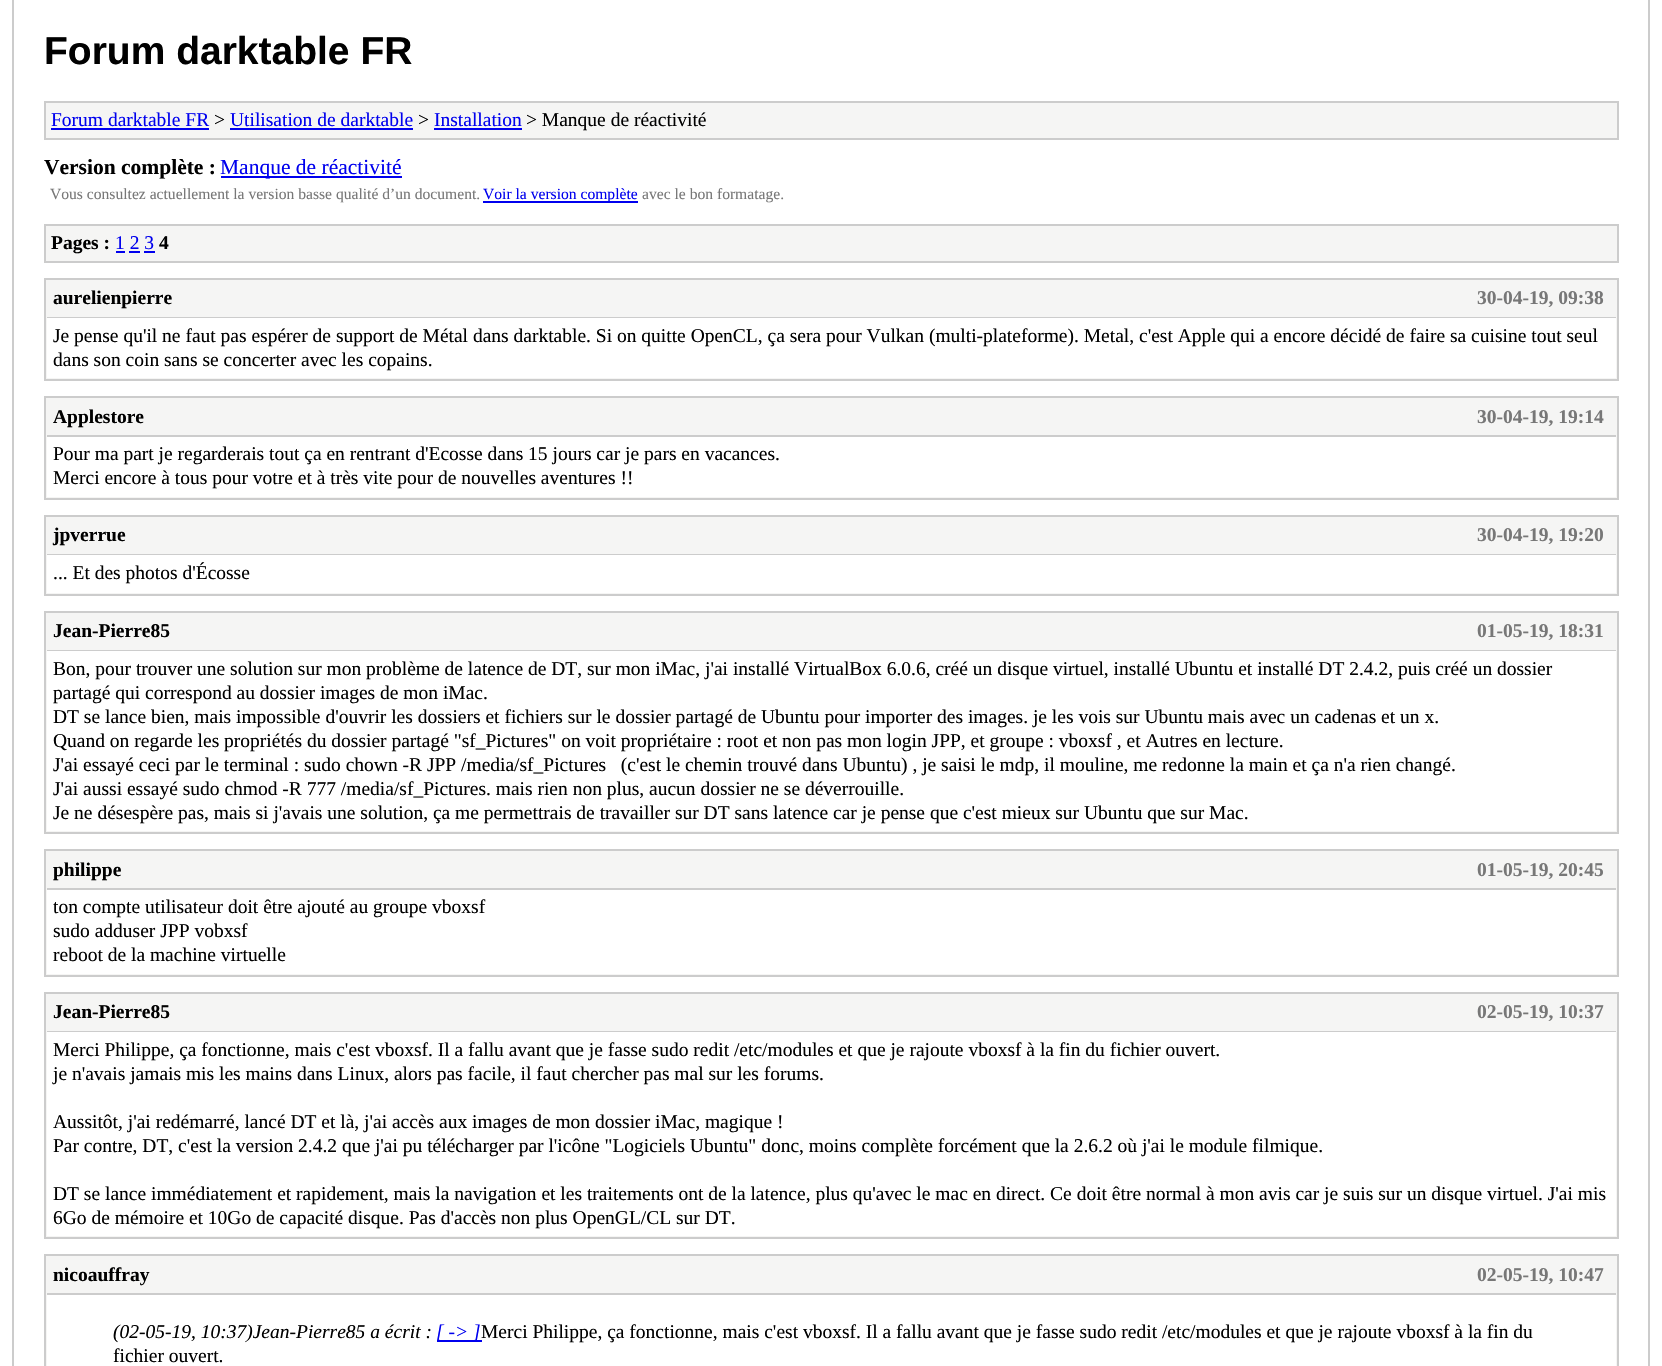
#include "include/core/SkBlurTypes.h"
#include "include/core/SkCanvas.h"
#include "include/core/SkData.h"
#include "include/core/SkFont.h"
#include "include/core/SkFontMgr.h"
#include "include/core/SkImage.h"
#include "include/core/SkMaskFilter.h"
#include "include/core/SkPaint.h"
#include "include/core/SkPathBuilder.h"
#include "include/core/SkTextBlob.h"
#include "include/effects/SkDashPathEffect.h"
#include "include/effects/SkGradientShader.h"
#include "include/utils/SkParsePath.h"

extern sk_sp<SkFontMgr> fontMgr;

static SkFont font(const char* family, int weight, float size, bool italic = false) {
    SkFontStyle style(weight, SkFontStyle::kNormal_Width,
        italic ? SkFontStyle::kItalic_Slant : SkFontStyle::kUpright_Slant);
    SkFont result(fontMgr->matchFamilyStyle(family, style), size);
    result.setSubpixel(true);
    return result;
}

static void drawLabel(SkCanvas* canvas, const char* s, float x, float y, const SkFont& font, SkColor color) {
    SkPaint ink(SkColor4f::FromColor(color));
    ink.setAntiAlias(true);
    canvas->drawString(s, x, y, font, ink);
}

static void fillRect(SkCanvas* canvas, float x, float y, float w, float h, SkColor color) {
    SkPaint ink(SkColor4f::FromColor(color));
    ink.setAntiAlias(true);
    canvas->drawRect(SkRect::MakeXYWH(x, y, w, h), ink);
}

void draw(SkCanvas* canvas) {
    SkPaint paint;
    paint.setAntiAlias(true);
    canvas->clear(0xFFFFFFFF);
    paint.setStroke(true);
    paint.setStrokeWidth(2);
    paint.setColor(0xFFCCCCCC);
    canvas->drawRect(SkRect::MakeXYWH(13, -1, 1636, 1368), paint);
    SkFont font1 = font("Liberation Sans", 700, 39);
    drawLabel(canvas, "Forum darktable FR", 44, 64, font1, 0xFF000000);
    paint.setStroke(false);
    paint.setColor(0xFFF5F5F4);
    canvas->drawRect(SkRect::MakeXYWH(45, 102, 1573, 37), paint);
    paint.setStroke(true);
    paint.setColor(0xFFCCCCCC);
    canvas->drawRect(SkRect::MakeXYWH(45, 102, 1573, 37), paint);
    SkFont font2 = font("Liberation Serif", 400, 19.5f);
    drawLabel(canvas, "Forum darktable FR", 51, 126, font2, 0xFF0000EE);
    fillRect(canvas, 51, 128, 158, 2, 0xFF0000EE);
    drawLabel(canvas, ">", 214, 126, font2, 0xFF000000);
    drawLabel(canvas, "Utilisation de darktable", 230, 126, font2, 0xFF0000EE);
    fillRect(canvas, 230, 128, 183, 2, 0xFF0000EE);
    drawLabel(canvas, ">", 418, 126, font2, 0xFF000000);
    drawLabel(canvas, "Installation", 434, 126, font2, 0xFF0000EE);
    fillRect(canvas, 434, 128, 88, 2, 0xFF0000EE);
    drawLabel(canvas, "> Manque de réactivité", 526, 126, font2, 0xFF000000);
    SkFont font3 = font("Liberation Serif", 700, 21.5f);
    drawLabel(canvas, "Version complète :", 44, 174, font3, 0xFF000000);
    fillRect(canvas, 221, 176, 181, 2, 0xFF0000EE);
    SkFont font4 = font("Liberation Serif", 400, 21.5f);
    drawLabel(canvas, "Manque de réactivité", 220, 174, font4, 0xFF0000EE);
    SkFont font5 = font("Liberation Serif", 400, 15.6f);
    drawLabel(canvas, "Vous consultez actuellement la version basse qualité d’un document.", 50, 199, font5, 0xFF777777);
    fillRect(canvas, 483, 201, 155, 2, 0xFF0000EE);
    drawLabel(canvas, "Voir la version complète", 483, 199, font5, 0xFF0000EE);
    drawLabel(canvas, "avec le bon formatage.", 642, 199, font5, 0xFF777777);
    paint.setStroke(false);
    paint.setColor(0xFFF5F5F4);
    canvas->drawRect(SkRect::MakeXYWH(45, 225, 1573, 37), paint);
    paint.setStroke(true);
    paint.setColor(0xFFCCCCCC);
    canvas->drawRect(SkRect::MakeXYWH(45, 225, 1573, 37), paint);
    SkFont font6 = font("Liberation Serif", 700, 19.5f);
    drawLabel(canvas, "Pages :", 51, 249, font6, 0xFF000000);
    drawLabel(canvas, "1 2 3", 115, 249, font2, 0xFF0000EE);
    fillRect(canvas, 116, 251, 9, 2, 0xFF0000EE);
    drawLabel(canvas, "4", 159, 249, font6, 0xFF000000);
    fillRect(canvas, 129, 251, 11, 2, 0xFF0000EE);
    fillRect(canvas, 144, 251, 11, 2, 0xFF0000EE);
    paint.setStroke(false);
    paint.setColor(0xFFF5F5F4);
    canvas->drawRect(SkRect::MakeXYWH(45, 279, 1573, 101), paint);
    paint.setStroke(true);
    paint.setColor(0xFFCCCCCC);
    canvas->drawRect(SkRect::MakeXYWH(45, 279, 1573, 101), paint);
    fillRect(canvas, 47, 317, 1569, 1, 0xFFCCCCCC);
    drawLabel(canvas, "aurelienpierre", 53, 304, font6, 0xFF000000);
    drawLabel(canvas, "30-04-19, 09:38", 1477, 304, font6, 0xFF777777);
    fillRect(canvas, 47, 318, 1569, 60, 0xFFFFFFFF);
    drawLabel(canvas, "Je pense qu'il ne faut pas espérer de support de Métal dans darktable. Si on quitte OpenCL, ça sera pour Vulkan (multi-plateforme). Metal, c'est Apple qui a encore décidé de faire sa cuisine tout seul", 53, 342, font2, 0xFF000000);
    drawLabel(canvas, "dans son coin sans se concerter avec les copains.", 53, 366, font2, 0xFF000000);
    paint.setStroke(false);
    paint.setColor(0xFFF5F5F4);
    canvas->drawRect(SkRect::MakeXYWH(45, 397, 1573, 102), paint);
    paint.setStroke(true);
    paint.setColor(0xFFCCCCCC);
    canvas->drawRect(SkRect::MakeXYWH(45, 397, 1573, 102), paint);
    fillRect(canvas, 47, 435, 1569, 2, 0xFFCCCCCC);
    drawLabel(canvas, "Applestore", 53, 423, font6, 0xFF000000);
    drawLabel(canvas, "30-04-19, 19:14", 1477, 423, font6, 0xFF777777);
    fillRect(canvas, 47, 437, 1569, 60, 0xFFFFFFFF);
    drawLabel(canvas, "Pour ma part je regarderais tout ça en rentrant d'Ecosse dans 15 jours car je pars en vacances.", 53, 460, font2, 0xFF000000);
    drawLabel(canvas, "Merci encore à tous pour votre et à très vite pour de nouvelles aventures !!", 53, 484, font2, 0xFF000000);
    paint.setStroke(false);
    paint.setColor(0xFFF5F5F4);
    canvas->drawRect(SkRect::MakeXYWH(45, 516, 1573, 79), paint);
    paint.setStroke(true);
    paint.setColor(0xFFCCCCCC);
    canvas->drawRect(SkRect::MakeXYWH(45, 516, 1573, 79), paint);
    fillRect(canvas, 47, 554, 1569, 1, 0xFFCCCCCC);
    drawLabel(canvas, "jpverrue", 53, 541, font6, 0xFF000000);
    drawLabel(canvas, "30-04-19, 19:20", 1477, 541, font6, 0xFF777777);
    fillRect(canvas, 47, 555, 1569, 38, 0xFFFFFFFF);
    drawLabel(canvas, "... Et des photos d'Écosse", 53, 579, font2, 0xFF000000);
    paint.setStroke(false);
    paint.setColor(0xFFF5F5F4);
    canvas->drawRect(SkRect::MakeXYWH(45, 612, 1573, 221), paint);
    paint.setStroke(true);
    paint.setColor(0xFFCCCCCC);
    canvas->drawRect(SkRect::MakeXYWH(45, 612, 1573, 221), paint);
    fillRect(canvas, 47, 650, 1569, 1, 0xFFCCCCCC);
    drawLabel(canvas, "Jean-Pierre85", 53, 637, font6, 0xFF000000);
    drawLabel(canvas, "01-05-19, 18:31", 1477, 637, font6, 0xFF777777);
    fillRect(canvas, 47, 651, 1569, 180, 0xFFFFFFFF);
    drawLabel(canvas, "Bon, pour trouver une solution sur mon problème de latence de DT, sur mon iMac, j'ai installé VirtualBox 6.0.6, créé un disque virtuel, installé Ubuntu et installé DT 2.4.2, puis créé un dossier", 53, 675, font2, 0xFF000000);
    drawLabel(canvas, "partagé qui correspond au dossier images de mon iMac.", 53, 699, font2, 0xFF000000);
    drawLabel(canvas, "DT se lance bien, mais impossible d'ouvrir les dossiers et fichiers sur le dossier partagé de Ubuntu pour importer des images. je les vois sur Ubuntu mais avec un cadenas et un x.", 53, 723, font2, 0xFF000000);
    drawLabel(canvas, "Quand on regarde les propriétés du dossier partagé \"sf_Pictures\" on voit propriétaire : root et non pas mon login JPP, et groupe : vboxsf , et Autres en lecture.", 53, 747, font2, 0xFF000000);
    drawLabel(canvas, "J'ai essayé ceci par le terminal : sudo chown -R JPP /media/sf_Pictures   (c'est le chemin trouvé dans Ubuntu) , je saisi le mdp, il mouline, me redonne la main et ça n'a rien changé.", 53, 771, font2, 0xFF000000);
    drawLabel(canvas, "J'ai aussi essayé sudo chmod -R 777 /media/sf_Pictures. mais rien non plus, aucun dossier ne se déverrouille.", 53, 795, font2, 0xFF000000);
    drawLabel(canvas, "Je ne désespère pas, mais si j'avais une solution, ça me permettrais de travailler sur DT sans latence car je pense que c'est mieux sur Ubuntu que sur Mac.", 53, 819, font2, 0xFF000000);
    paint.setStroke(false);
    paint.setColor(0xFFF5F5F4);
    canvas->drawRect(SkRect::MakeXYWH(45, 850, 1573, 126), paint);
    paint.setStroke(true);
    paint.setColor(0xFFCCCCCC);
    canvas->drawRect(SkRect::MakeXYWH(45, 850, 1573, 126), paint);
    fillRect(canvas, 47, 888, 1569, 2, 0xFFCCCCCC);
    drawLabel(canvas, "philippe", 53, 876, font6, 0xFF000000);
    drawLabel(canvas, "01-05-19, 20:45", 1477, 876, font6, 0xFF777777);
    fillRect(canvas, 47, 890, 1569, 84, 0xFFFFFFFF);
    drawLabel(canvas, "ton compte utilisateur doit être ajouté au groupe vboxsf", 53, 913, font2, 0xFF000000);
    drawLabel(canvas, "sudo adduser JPP vobxsf", 53, 937, font2, 0xFF000000);
    drawLabel(canvas, "reboot de la machine virtuelle", 53, 961, font2, 0xFF000000);
    paint.setStroke(false);
    paint.setColor(0xFFF5F5F4);
    canvas->drawRect(SkRect::MakeXYWH(45, 993, 1573, 245), paint);
    paint.setStroke(true);
    paint.setColor(0xFFCCCCCC);
    canvas->drawRect(SkRect::MakeXYWH(45, 993, 1573, 245), paint);
    fillRect(canvas, 47, 1031, 1569, 1, 0xFFCCCCCC);
    drawLabel(canvas, "Jean-Pierre85", 53, 1018, font6, 0xFF000000);
    drawLabel(canvas, "02-05-19, 10:37", 1477, 1018, font6, 0xFF777777);
    fillRect(canvas, 47, 1032, 1569, 204, 0xFFFFFFFF);
    drawLabel(canvas, "Merci Philippe, ça fonctionne, mais c'est vboxsf. Il a fallu avant que je fasse sudo redit /etc/modules et que je rajoute vboxsf à la fin du fichier ouvert.", 53, 1056, font2, 0xFF000000);
    drawLabel(canvas, "je n'avais jamais mis les mains dans Linux, alors pas facile, il faut chercher pas mal sur les forums.", 53, 1080, font2, 0xFF000000);
    drawLabel(canvas, "Aussitôt, j'ai redémarré, lancé DT et là, j'ai accès aux images de mon dossier iMac, magique !", 53, 1128, font2, 0xFF000000);
    drawLabel(canvas, "Par contre, DT, c'est la version 2.4.2 que j'ai pu télécharger par l'icône \"Logiciels Ubuntu\" donc, moins complète forcément que la 2.6.2 où j'ai le module filmique.", 53, 1152, font2, 0xFF000000);
    drawLabel(canvas, "DT se lance immédiatement et rapidement, mais la navigation et les traitements ont de la latence, plus qu'avec le mac en direct. Ce doit être normal à mon avis car je suis sur un disque virtuel. J'ai mis", 53, 1200, font2, 0xFF000000);
    drawLabel(canvas, "6Go de mémoire et 10Go de capacité disque. Pas d'accès non plus OpenGL/CL sur DT.", 53, 1224, font2, 0xFF000000);
    paint.setStroke(false);
    paint.setColor(0xFFF5F5F4);
    canvas->drawRect(SkRect::MakeXYWH(45, 1255, 1573, 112), paint);
    paint.setStroke(true);
    paint.setColor(0xFFCCCCCC);
    canvas->drawRect(SkRect::MakeXYWH(45, 1255, 1573, 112), paint);
    fillRect(canvas, 47, 1293, 1569, 2, 0xFFCCCCCC);
    drawLabel(canvas, "nicoauffray", 53, 1281, font6, 0xFF000000);
    drawLabel(canvas, "02-05-19, 10:47", 1477, 1281, font6, 0xFF777777);
    fillRect(canvas, 47, 1295, 1569, 71, 0xFFFFFFFF);
    SkFont font7 = font("Liberation Serif", 400, 19.5f, true);
    drawLabel(canvas, "(02-05-19, 10:37)Jean-Pierre85 a écrit :", 113, 1338, font7, 0xFF000000);
    fillRect(canvas, 437, 1340, 45, 2, 0xFF0000EE);
    drawLabel(canvas, "[ -> ]", 436, 1338, font7, 0xFF0000EE);
    drawLabel(canvas, "Merci Philippe, ça fonctionne, mais c'est vboxsf. Il a fallu avant que je fasse sudo redit /etc/modules et que je rajoute vboxsf à la fin du", 481, 1338, font2, 0xFF000000);
    drawLabel(canvas, "fichier ouvert.", 113, 1362, font2, 0xFF000000);
}
